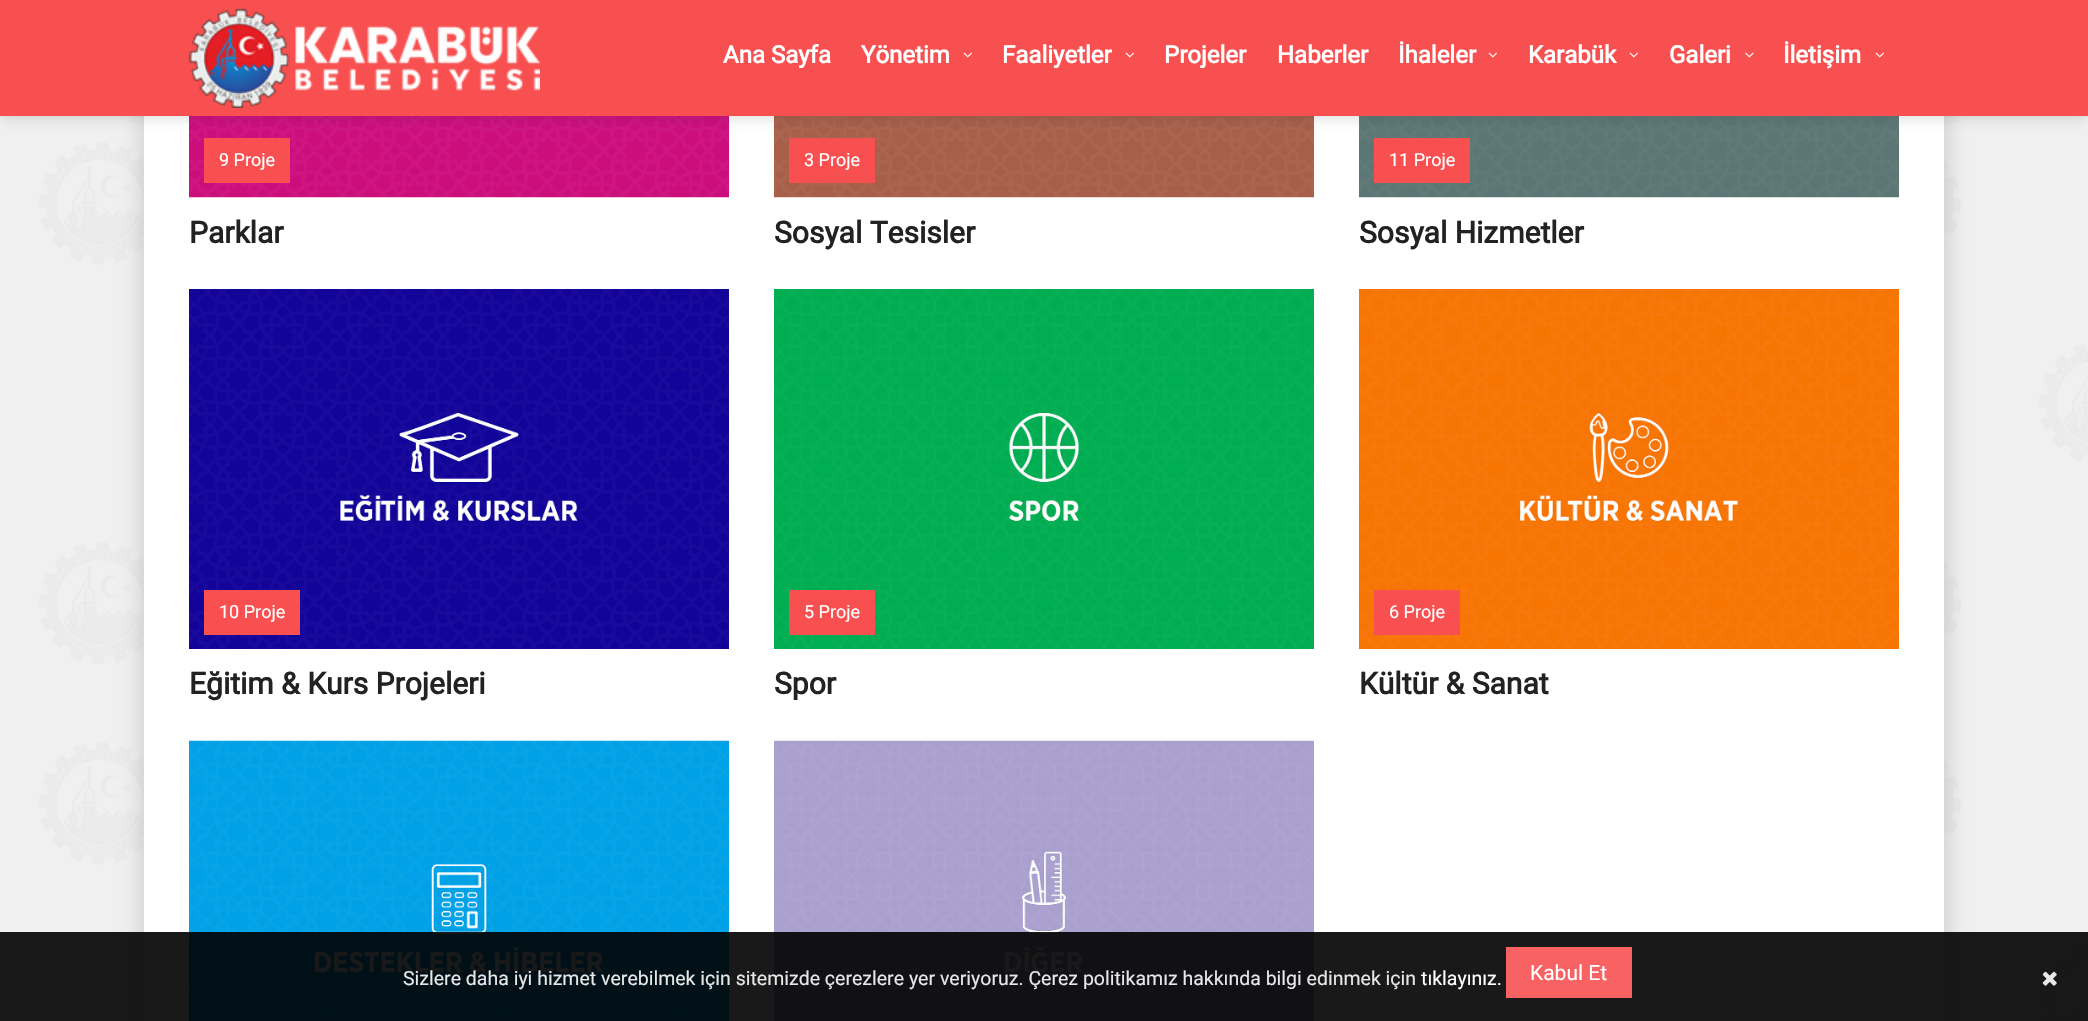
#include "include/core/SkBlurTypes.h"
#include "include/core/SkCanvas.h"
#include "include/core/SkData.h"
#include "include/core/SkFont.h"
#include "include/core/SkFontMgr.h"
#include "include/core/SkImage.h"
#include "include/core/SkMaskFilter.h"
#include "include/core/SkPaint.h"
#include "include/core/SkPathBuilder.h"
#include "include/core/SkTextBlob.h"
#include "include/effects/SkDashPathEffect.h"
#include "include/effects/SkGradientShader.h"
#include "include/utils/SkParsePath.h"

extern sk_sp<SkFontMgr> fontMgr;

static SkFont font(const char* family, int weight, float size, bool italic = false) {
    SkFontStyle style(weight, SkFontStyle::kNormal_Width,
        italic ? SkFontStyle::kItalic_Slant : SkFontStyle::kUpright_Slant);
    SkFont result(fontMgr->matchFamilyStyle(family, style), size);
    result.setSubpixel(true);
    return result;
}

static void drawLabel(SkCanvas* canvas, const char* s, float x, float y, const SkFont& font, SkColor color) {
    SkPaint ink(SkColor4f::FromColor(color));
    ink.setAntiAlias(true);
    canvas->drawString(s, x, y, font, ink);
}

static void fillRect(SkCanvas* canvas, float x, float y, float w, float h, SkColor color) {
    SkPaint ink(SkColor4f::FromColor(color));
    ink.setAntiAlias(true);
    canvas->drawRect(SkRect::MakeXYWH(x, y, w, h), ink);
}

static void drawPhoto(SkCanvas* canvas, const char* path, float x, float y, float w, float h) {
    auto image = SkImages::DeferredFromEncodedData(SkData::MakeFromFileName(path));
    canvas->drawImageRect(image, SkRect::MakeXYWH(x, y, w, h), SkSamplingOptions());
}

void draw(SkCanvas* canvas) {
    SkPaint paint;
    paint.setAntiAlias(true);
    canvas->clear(0xFFFFFFFF);
    drawPhoto(canvas, "assets/img1.png", 0, 116, 2088, 905);
    paint.setColor(0x1A000000);
    paint.setMaskFilter(SkMaskFilter::MakeBlur(kNormal_SkBlurStyle, 7.5f));
    canvas->drawRect(SkRect::MakeXYWH(137, -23, 1815, 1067), paint);
    paint.setMaskFilter(nullptr);
    fillRect(canvas, 144, 116, 1800, 905, 0xFFFFFFFF);
    drawPhoto(canvas, "assets/img5.png", 189, 116, 540, 82);
    fillRect(canvas, 204, 138, 86, 45, 0xFFF85050);
    drawPhoto(canvas, "assets/img6.png", 774, 116, 540, 82);
    fillRect(canvas, 789, 138, 86, 45, 0xFFF85050);
    drawPhoto(canvas, "assets/img7.png", 1359, 116, 540, 82);
    fillRect(canvas, 1374, 138, 96, 45, 0xFFF85050);
    paint.setColor(0x33222222);
    paint.setMaskFilter(SkMaskFilter::MakeBlur(kNormal_SkBlurStyle, 7.5f));
    canvas->drawRect(SkRect::MakeXYWH(0, 0, 2088, 116), paint);
    paint.setMaskFilter(nullptr);
    fillRect(canvas, 0, 0, 2088, 116, 0xFFF85050);
    drawPhoto(canvas, "assets/img2.png", 189, 8, 351, 100);
    SkFont font1 = font("Roboto", 700, 24);
    drawLabel(canvas, "Ana Sayfa", 723, 63, font1, 0xFFFFFFFF);
    drawLabel(canvas, "Yönetim", 861, 63, font1, 0xFFFFFFFF);
    drawPhoto(canvas, "assets/img3.png", 963, 52, 9, 6);
    drawLabel(canvas, "Faaliyetler", 1002, 63, font1, 0xFFFFFFFF);
    drawPhoto(canvas, "assets/img3.png", 1125, 52, 9, 6);
    drawLabel(canvas, "Projeler", 1164, 63, font1, 0xFFFFFFFF);
    drawLabel(canvas, "Haberler", 1277, 63, font1, 0xFFFFFFFF);
    drawLabel(canvas, "İhaleler", 1398, 63, font1, 0xFFFFFFFF);
    drawPhoto(canvas, "assets/img3.png", 1488, 52, 9, 6);
    drawLabel(canvas, "Karabük", 1528, 63, font1, 0xFFFFFFFF);
    drawPhoto(canvas, "assets/img3.png", 1629, 52, 9, 6);
    drawLabel(canvas, "Galeri", 1669, 63, font1, 0xFFFFFFFF);
    drawPhoto(canvas, "assets/img4.png", 1745, 52, 9, 6);
    drawLabel(canvas, "İletişim", 1783, 63, font1, 0xFFFFFFFF);
    drawPhoto(canvas, "assets/img3.png", 1875, 52, 9, 6);
    SkFont font2 = font("Roboto", 400, 18);
    drawLabel(canvas, "9 Proje", 219, 166, font2, 0xFFFFFFFF);
    SkFont font3 = font("Roboto", 700, 30);
    drawLabel(canvas, "Parklar", 189, 243, font3, 0xFF222222);
    drawLabel(canvas, "3 Proje", 804, 166, font2, 0xFFFFFFFF);
    drawLabel(canvas, "Sosyal Tesisler", 774, 243, font3, 0xFF222222);
    drawLabel(canvas, "11 Proje", 1389, 166, font2, 0xFFFFFFFF);
    drawLabel(canvas, "Sosyal Hizmetler", 1359, 243, font3, 0xFF222222);
    drawPhoto(canvas, "assets/img8.png", 189, 289, 540, 360);
    fillRect(canvas, 204, 590, 96, 45, 0xFFF85050);
    drawLabel(canvas, "10 Proje", 219, 618, font2, 0xFFFFFFFF);
    drawLabel(canvas, "Eğitim & Kurs Projeleri", 189, 694, font3, 0xFF222222);
    drawPhoto(canvas, "assets/img9.png", 774, 289, 540, 360);
    fillRect(canvas, 789, 590, 86, 45, 0xFFF85050);
    drawLabel(canvas, "5 Proje", 804, 618, font2, 0xFFFFFFFF);
    drawLabel(canvas, "Spor", 774, 694, font3, 0xFF222222);
    drawPhoto(canvas, "assets/img10.png", 1359, 289, 540, 360);
    fillRect(canvas, 1374, 590, 86, 45, 0xFFF85050);
    drawLabel(canvas, "6 Proje", 1389, 618, font2, 0xFFFFFFFF);
    drawLabel(canvas, "Kültür & Sanat", 1359, 694, font3, 0xFF222222);
    drawPhoto(canvas, "assets/img11.png", 189, 740, 540, 281);
    drawPhoto(canvas, "assets/img12.png", 774, 740, 540, 281);
    fillRect(canvas, 0, 932, 2088, 89, 0xE6000000);
    SkFont font4 = font("Roboto", 400, 19.5f);
    drawLabel(canvas, "Sizlere daha iyi hizmet verebilmek için sitemizde çerezlere yer veriyoruz. Çerez politikamız hakkında bilgi edinmek için", 403, 985, font4, 0xFFE7E7E8);
    drawLabel(canvas, "tıklayınız.", 1421, 985, font4, 0xFFFFFFFF);
    fillRect(canvas, 1506, 947, 126, 51, 0xFFF96262);
    SkFont font5 = font("Roboto", 400, 21);
    drawLabel(canvas, "Kabul Et", 1530, 980, font5, 0xFFFFFFFF);
    drawPhoto(canvas, "assets/img13.png", 2042, 971, 15, 15);
}
